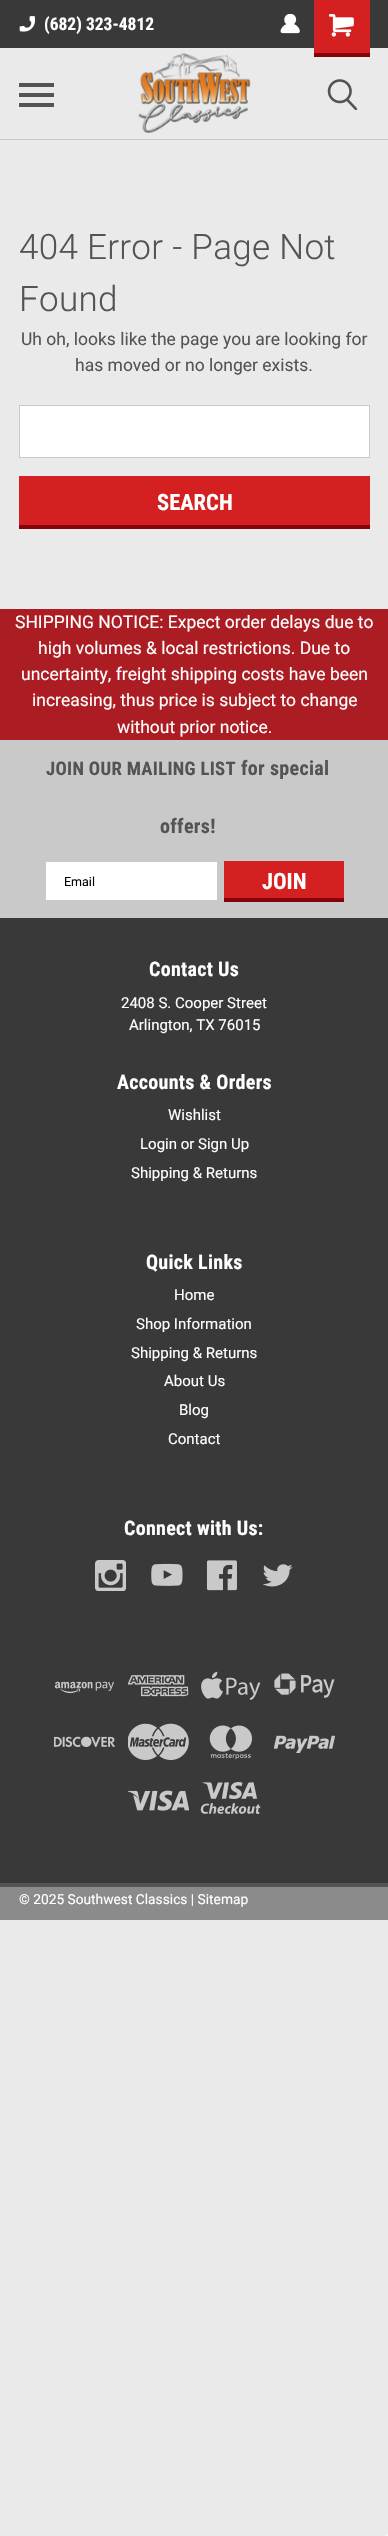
#include "include/core/SkBlurTypes.h"
#include "include/core/SkCanvas.h"
#include "include/core/SkData.h"
#include "include/core/SkFont.h"
#include "include/core/SkFontMgr.h"
#include "include/core/SkImage.h"
#include "include/core/SkMaskFilter.h"
#include "include/core/SkPaint.h"
#include "include/core/SkPathBuilder.h"
#include "include/core/SkTextBlob.h"
#include "include/effects/SkDashPathEffect.h"
#include "include/effects/SkGradientShader.h"
#include "include/utils/SkParsePath.h"

extern sk_sp<SkFontMgr> fontMgr;

static SkFont font(const char* family, int weight, float size, bool italic = false) {
    SkFontStyle style(weight, SkFontStyle::kNormal_Width,
        italic ? SkFontStyle::kItalic_Slant : SkFontStyle::kUpright_Slant);
    SkFont result(fontMgr->matchFamilyStyle(family, style), size);
    result.setSubpixel(true);
    return result;
}

static void drawLabel(SkCanvas* canvas, const char* s, float x, float y, const SkFont& font, SkColor color) {
    SkPaint ink(SkColor4f::FromColor(color));
    ink.setAntiAlias(true);
    canvas->drawString(s, x, y, font, ink);
}

static void drawTracked(SkCanvas* canvas, const char* s, float x, float y, const SkFont& font, const SkPaint& ink, float letter, float word) {
    std::vector<SkGlyphID> glyphs(font.countText(s, strlen(s), SkTextEncoding::kUTF8));
    std::vector<float> xs(glyphs.size());
    font.textToGlyphs(s, strlen(s), SkTextEncoding::kUTF8, glyphs);
    font.getXPos(glyphs, xs, x);
    float extra = 0;
    for (size_t i = 0; i < glyphs.size(); i++) {
        xs[i] += extra;
        extra += letter + word * (glyphs[i] == font.unicharToGlyph(' '));
    }
    canvas->drawTextBlob(SkTextBlob::MakeFromPosHGlyphs(glyphs, xs, y, font), 0, 0, ink);
}

static void fillRect(SkCanvas* canvas, float x, float y, float w, float h, SkColor color) {
    SkPaint ink(SkColor4f::FromColor(color));
    ink.setAntiAlias(true);
    canvas->drawRect(SkRect::MakeXYWH(x, y, w, h), ink);
}

static void drawPhoto(SkCanvas* canvas, const char* path, float x, float y, float w, float h) {
    auto image = SkImages::DeferredFromEncodedData(SkData::MakeFromFileName(path));
    canvas->drawImageRect(image, SkRect::MakeXYWH(x, y, w, h), SkSamplingOptions());
}

void draw(SkCanvas* canvas) {
    SkPaint paint;
    paint.setAntiAlias(true);
    canvas->clear(0xFFEAEAEA);
    fillRect(canvas, 0, 139, 388, 1, 0xFFCAC9C9);
    fillRect(canvas, 0, 0, 388, 48, 0xFF393939);
    drawPhoto(canvas, "assets/img1.png", 19, 16, 16, 16);
    SkFont font1 = font("Roboto Condensed", 700, 17.5f);
    drawLabel(canvas, "(682) 323-4812", 44, 30, font1, 0xFFFFFFFF);
    drawPhoto(canvas, "assets/img2.png", 280, 14, 20, 20);
    fillRect(canvas, 314, 0, 56, 53, 0xFFD42020);
    fillRect(canvas, 314, 53, 56, 4, 0xFF860109);
    drawPhoto(canvas, "assets/img3.png", 329, 14, 25, 23);
    fillRect(canvas, 19, 93, 35, 4, 0xFF545454);
    fillRect(canvas, 19, 83, 35, 4, 0xFF545454);
    fillRect(canvas, 19, 103, 35, 4, 0xFF545454);
    drawPhoto(canvas, "assets/img4.png", 138, 53, 113, 80);
    drawPhoto(canvas, "assets/img5.png", 327, 79, 31, 31);
    SkFont font2 = font("Roboto", 300, 35);
    paint.setColor(0xFF545454);
    drawTracked(canvas, "404 Error - Page Not", 19, 259, font2, paint, 0.3f, 0);
    drawTracked(canvas, "Found", 19, 311, font2, paint, 0.3f, 0);
    SkFont font3 = font("Roboto", 400, 17.5f);
    drawLabel(canvas, "Uh oh, looks like the page you are looking for", 21, 345, font3, 0xFF545454);
    drawLabel(canvas, "has moved or no longer exists.", 75, 371, font3, 0xFF545454);
    paint.setColor(0xFFFFFFFF);
    canvas->drawRect(SkRect::MakeXYWH(19.5f, 405.5f, 350, 52), paint);
    paint.setStroke(true);
    paint.setStrokeWidth(1);
    paint.setColor(0xFFCAC9C9);
    canvas->drawRect(SkRect::MakeXYWH(19.5f, 405.5f, 350, 52), paint);
    fillRect(canvas, 19, 476, 351, 49, 0xFFD42020);
    fillRect(canvas, 19, 525, 351, 4, 0xFF860109);
    SkFont font4 = font("Roboto Condensed", 700, 22.5f);
    drawLabel(canvas, "SEARCH", 157, 510, font4, 0xFFFFFFFF);
    fillRect(canvas, 0, 609, 388, 131, 0xFFAB1D22);
    drawLabel(canvas, "SHIPPING NOTICE: Expect order delays due to", 15, 628, font3, 0xFFFFFFFF);
    drawLabel(canvas, "high volumes & local restrictions. Due to", 38, 654, font3, 0xFFFFFFFF);
    drawLabel(canvas, "uncertainty, freight shipping costs have been", 21, 680, font3, 0xFFFFFFFF);
    drawLabel(canvas, "increasing, thus price is subject to change", 32, 706, font3, 0xFFFFFFFF);
    drawLabel(canvas, "without prior notice.", 117, 733, font3, 0xFFFFFFFF);
    fillRect(canvas, 0, 918, 388, 965, 0xFF393939);
    fillRect(canvas, 0, 740, 388, 178, 0xFFCAC9C9);
    SkFont font5 = font("Roboto Condensed", 700, 18.75f);
    paint.setStroke(false);
    paint.setColor(0xFF545454);
    drawTracked(canvas, "JOIN OUR MAILING LIST", 46, 775, font5, paint, 0.3f, 0);
    SkFont font6 = font("Roboto Condensed", 700, 20);
    drawTracked(canvas, "for special", 241, 775, font6, paint, 0.3f, 0);
    drawTracked(canvas, "offers!", 160, 833, font6, paint, 0.3f, 0);
    fillRect(canvas, 46, 862, 171, 38, 0xFFFFFFFF);
    SkFont font7 = font("Roboto", 400, 12.5f);
    drawLabel(canvas, "Email", 64, 886, font7, 0xFF000000);
    fillRect(canvas, 224, 861, 120, 37, 0xFFD42020);
    fillRect(canvas, 224, 898, 120, 4, 0xFF860109);
    drawLabel(canvas, "JOIN", 262, 889, font4, 0xFFFFFFFF);
    paint.setColor(0xFFFFFFFF);
    drawTracked(canvas, "Contact Us", 149, 976, font6, paint, 0.3f, 0);
    SkFont font8 = font("Roboto", 400, 15);
    drawLabel(canvas, "2408 S. Cooper Street", 121, 1008, font8, 0xFFFFFFFF);
    drawLabel(canvas, "Arlington, TX 76015", 129, 1030, font8, 0xFFFFFFFF);
    drawTracked(canvas, "Accounts & Orders", 117, 1089, font6, paint, 0.3f, 0);
    drawLabel(canvas, "Wishlist", 168, 1120, font8, 0xFFFFFFFF);
    drawLabel(canvas, "Login or", 140, 1149, font8, 0xFFFFFFFF);
    drawLabel(canvas, "Sign Up", 198, 1149, font8, 0xFFFFFFFF);
    drawLabel(canvas, "Shipping & Returns", 131, 1178, font8, 0xFFFFFFFF);
    drawTracked(canvas, "Quick Links", 146, 1269, font6, paint, 0.3f, 0);
    drawLabel(canvas, "Home", 174, 1300, font8, 0xFFFFFFFF);
    drawLabel(canvas, "Shop Information", 136, 1329, font8, 0xFFFFFFFF);
    drawLabel(canvas, "Shipping & Returns", 131, 1358, font8, 0xFFFFFFFF);
    drawLabel(canvas, "About Us", 164, 1386, font8, 0xFFFFFFFF);
    drawLabel(canvas, "Blog", 179, 1415, font8, 0xFFFFFFFF);
    drawLabel(canvas, "Contact", 168, 1444, font8, 0xFFFFFFFF);
    drawTracked(canvas, "Connect with Us:", 124, 1535, font6, paint, 0.3f, 0);
    drawPhoto(canvas, "assets/img6.png", 95, 1560, 31, 31);
    drawPhoto(canvas, "assets/img7.png", 151, 1563, 32, 23);
    drawPhoto(canvas, "assets/img8.png", 206, 1560, 31, 31);
    drawPhoto(canvas, "assets/img9.png", 263, 1564, 30, 23);
    drawPhoto(canvas, "assets/img10.png", 54, 1681, 60, 13);
    drawPhoto(canvas, "assets/img11.png", 128, 1675, 61, 22);
    drawPhoto(canvas, "assets/img12.png", 201, 1671, 60, 29);
    drawPhoto(canvas, "assets/img13.png", 274, 1673, 61, 25);
    drawPhoto(canvas, "assets/img14.png", 54, 1736, 61, 12);
    drawPhoto(canvas, "assets/img15.png", 128, 1723, 61, 37);
    drawPhoto(canvas, "assets/img16.png", 209, 1725, 43, 35);
    drawPhoto(canvas, "assets/img17.png", 274, 1735, 61, 18);
    drawPhoto(canvas, "assets/img18.png", 128, 1790, 61, 21);
    drawPhoto(canvas, "assets/img19.png", 200, 1782, 61, 32);
    fillRect(canvas, 0, 1887, 388, 33, 0xFF8B8B8B);
    fillRect(canvas, 0, 1883, 388, 4, 0xFF545454);
    SkFont font9 = font("Roboto", 400, 13.75f);
    drawLabel(canvas, "© 2025 Southwest Classics | Sitemap", 19, 1904, font9, 0xFFFFFFFF);
    fillRect(canvas, 386, 2534, 2, 2, 0xFFF5F5F5);
}
